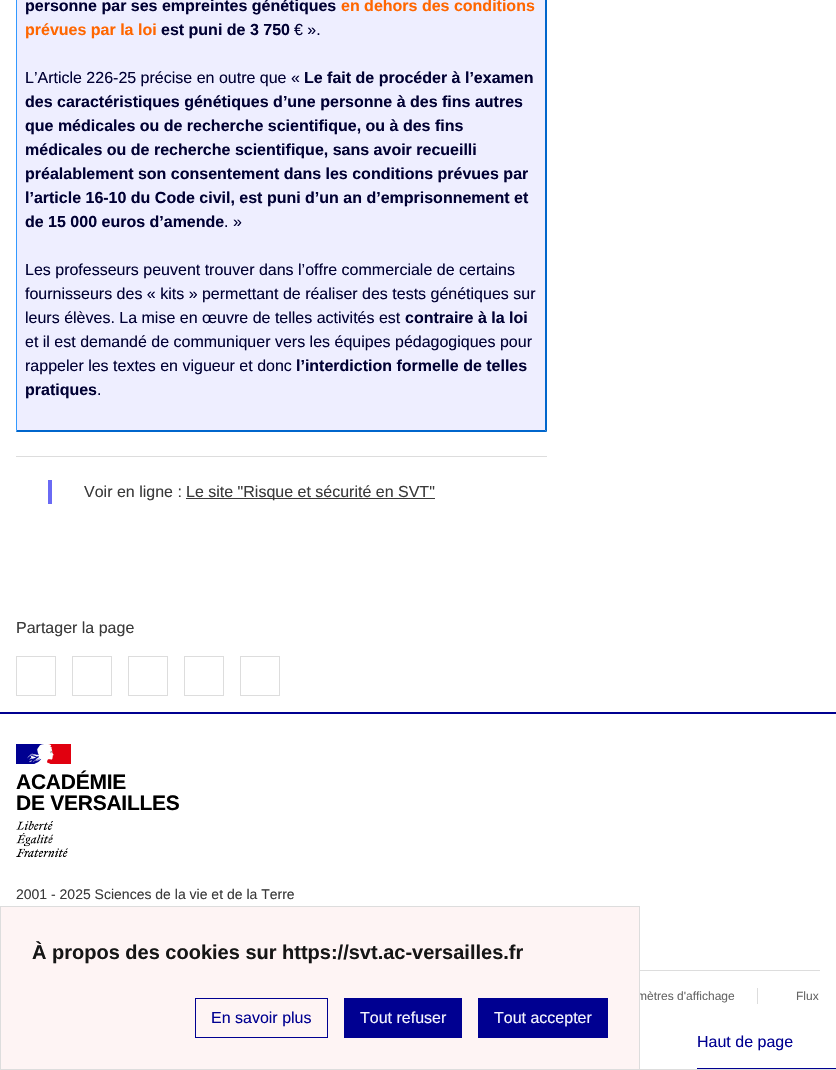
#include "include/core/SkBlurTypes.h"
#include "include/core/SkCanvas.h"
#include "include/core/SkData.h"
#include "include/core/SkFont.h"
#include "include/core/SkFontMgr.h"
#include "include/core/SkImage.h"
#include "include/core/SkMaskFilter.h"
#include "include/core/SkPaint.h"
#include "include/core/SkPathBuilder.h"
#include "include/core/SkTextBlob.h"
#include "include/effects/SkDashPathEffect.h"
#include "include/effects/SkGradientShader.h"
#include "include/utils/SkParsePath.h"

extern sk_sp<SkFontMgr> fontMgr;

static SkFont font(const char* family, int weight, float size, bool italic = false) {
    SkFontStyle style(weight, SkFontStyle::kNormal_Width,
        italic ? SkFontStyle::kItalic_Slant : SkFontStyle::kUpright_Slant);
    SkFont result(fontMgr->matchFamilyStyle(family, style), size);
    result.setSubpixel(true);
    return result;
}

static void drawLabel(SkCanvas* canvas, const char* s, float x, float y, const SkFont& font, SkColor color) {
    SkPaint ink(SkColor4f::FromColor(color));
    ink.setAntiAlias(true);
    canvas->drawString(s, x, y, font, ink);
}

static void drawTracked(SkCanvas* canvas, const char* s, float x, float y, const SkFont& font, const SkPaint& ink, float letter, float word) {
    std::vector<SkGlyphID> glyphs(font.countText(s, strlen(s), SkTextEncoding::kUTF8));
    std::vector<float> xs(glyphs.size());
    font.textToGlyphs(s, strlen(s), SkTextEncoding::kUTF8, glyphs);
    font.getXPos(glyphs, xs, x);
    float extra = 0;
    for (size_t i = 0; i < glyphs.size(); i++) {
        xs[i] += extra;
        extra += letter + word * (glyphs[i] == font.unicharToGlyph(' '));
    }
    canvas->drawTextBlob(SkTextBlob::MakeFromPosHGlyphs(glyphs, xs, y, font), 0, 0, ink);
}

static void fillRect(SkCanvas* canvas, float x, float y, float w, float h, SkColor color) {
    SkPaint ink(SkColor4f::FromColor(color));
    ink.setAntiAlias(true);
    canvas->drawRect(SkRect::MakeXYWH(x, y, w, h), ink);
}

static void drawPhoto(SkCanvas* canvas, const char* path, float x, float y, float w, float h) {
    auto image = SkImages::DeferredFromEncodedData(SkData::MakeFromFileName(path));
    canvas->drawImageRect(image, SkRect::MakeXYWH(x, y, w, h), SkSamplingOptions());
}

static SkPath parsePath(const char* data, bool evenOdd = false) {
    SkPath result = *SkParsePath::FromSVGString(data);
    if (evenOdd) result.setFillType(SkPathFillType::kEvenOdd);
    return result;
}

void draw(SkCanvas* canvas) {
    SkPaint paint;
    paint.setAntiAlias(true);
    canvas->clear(0xFFFFFFFF);
    fillRect(canvas, 17, 0, 528, 430, 0xFFEEEEFF);
    paint.setColor(0xFF0066CC);
    canvas->drawPath(parsePath("M547-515V432L545 430V-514Z"), paint);
    canvas->drawPath(parsePath("M547 432H16L17 430H545Z"), paint);
    paint.setColor(0xFF3399FF);
    canvas->drawPath(parsePath("M16 432V-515L17-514V430Z"), paint);
    SkFont font1 = font("Liberation Sans", 700, 16);
    drawLabel(canvas, "personne par ses empreintes génétiques", 25, 11, font1, 0xFF000033);
    drawLabel(canvas, "en dehors des conditions", 341, 11, font1, 0xFFFF6600);
    drawLabel(canvas, "prévues par la loi", 25, 35, font1, 0xFFFF6600);
    drawLabel(canvas, "est puni de 3 750", 161, 35, font1, 0xFF000033);
    SkFont font2 = font("Liberation Sans", 400, 16);
    drawLabel(canvas, "€ ».", 294, 35, font2, 0xFF000033);
    drawLabel(canvas, "L’Article 226-25 précise en outre que «", 25, 83, font2, 0xFF000033);
    drawLabel(canvas, "Le fait de procéder à l’examen", 304, 83, font1, 0xFF000033);
    drawLabel(canvas, "des caractéristiques génétiques d’une personne à des fins autres", 25, 107, font1, 0xFF000033);
    drawLabel(canvas, "que médicales ou de recherche scientifique, ou à des fins", 25, 131, font1, 0xFF000033);
    drawLabel(canvas, "médicales ou de recherche scientifique, sans avoir recueilli", 25, 155, font1, 0xFF000033);
    drawLabel(canvas, "préalablement son consentement dans les conditions prévues par", 25, 179, font1, 0xFF000033);
    drawLabel(canvas, "l’article 16-10 du Code civil, est puni d’un an d’emprisonnement et", 25, 203, font1, 0xFF000033);
    drawLabel(canvas, "de 15 000 euros d’amende", 25, 227, font1, 0xFF000033);
    drawLabel(canvas, ". »", 224, 227, font2, 0xFF000033);
    drawLabel(canvas, "Les professeurs peuvent trouver dans l’offre commerciale de certains", 25, 275, font2, 0xFF000033);
    drawLabel(canvas, "fournisseurs des « kits » permettant de réaliser des tests génétiques sur", 25, 299, font2, 0xFF000033);
    drawLabel(canvas, "leurs élèves. La mise en œuvre de telles activités est", 25, 323, font2, 0xFF000033);
    drawLabel(canvas, "contraire à la loi", 405, 323, font1, 0xFF000033);
    drawLabel(canvas, "et il est demandé de communiquer vers les équipes pédagogiques pour", 25, 347, font2, 0xFF000033);
    drawLabel(canvas, "rappeler les textes en vigueur et donc", 25, 371, font2, 0xFF000033);
    drawLabel(canvas, "l’interdiction formelle de telles", 296, 371, font1, 0xFF000033);
    drawLabel(canvas, "pratiques", 25, 395, font1, 0xFF000033);
    drawLabel(canvas, ".", 97, 395, font2, 0xFF000033);
    fillRect(canvas, 16, 456, 531, 1, 0xFFDDDDDD);
    fillRect(canvas, 48, 480, 4, 24, 0xFF6A6AF4);
    drawLabel(canvas, "Voir en ligne :", 84, 497, font2, 0xFF3A3A3A);
    fillRect(canvas, 186, 498, 249, 1, 0xFF3A3A3A);
    drawLabel(canvas, "Le site \"Risque et sécurité en SVT\"", 186, 497, font2, 0xFF3A3A3A);
    drawLabel(canvas, "Partager la page", 16, 633, font2, 0xFF3A3A3A);
    paint.setStroke(true);
    paint.setStrokeWidth(1);
    paint.setColor(0xFFDDDDDD);
    canvas->drawRect(SkRect::MakeXYWH(16.5f, 656.5f, 39, 39), paint);
    canvas->drawRect(SkRect::MakeXYWH(72.5f, 656.5f, 39, 39), paint);
    canvas->drawRect(SkRect::MakeXYWH(128.5f, 656.5f, 39, 39), paint);
    canvas->drawRect(SkRect::MakeXYWH(184.5f, 656.5f, 39, 39), paint);
    canvas->drawRect(SkRect::MakeXYWH(240.5f, 656.5f, 39, 39), paint);
    fillRect(canvas, 640, 1069, 196, 1, 0xFFDDDDDD);
    fillRect(canvas, 0, 712, 836, 2, 0xFF000091);
    fillRect(canvas, 16, 744, 28, 20, 0xFF000091);
    fillRect(canvas, 47, 744, 24, 20, 0xFFE1000F);
    drawPhoto(canvas, "assets/img1.png", 27, 744, 27, 20);
    SkFont font3 = font("Liberation Sans", 700, 21);
    paint.setStroke(false);
    paint.setColor(0xFF000000);
    drawTracked(canvas, "ACADÉMIE", 16, 789, font3, paint, -0.25f, 0);
    drawTracked(canvas, "DE VERSAILLES", 16, 810, font3, paint, -0.25f, 0);
    drawPhoto(canvas, "assets/img2.png", 16, 821, 52, 37);
    SkFont font4 = font("Liberation Sans", 400, 14);
    drawLabel(canvas, "2001 - 2025 Sciences de la vie et de la Terre", 16, 899, font4, 0xFF3A3A3A);
    fillRect(canvas, 640, 970, 180, 1, 0xFFDDDDDD);
    SkFont font5 = font("Liberation Sans", 400, 12);
    drawLabel(canvas, "mètres d'affichage", 637, 1000, font5, 0xFF666666);
    fillRect(canvas, 757, 988, 1, 16, 0xFFDDDDDD);
    drawLabel(canvas, "Flux", 796, 1000, font5, 0xFF666666);
    paint.setColor(0xFFFEF4F4);
    canvas->drawRect(SkRect::MakeXYWH(0.5f, 906.5f, 639, 163), paint);
    paint.setStroke(true);
    paint.setColor(0xFFDDDDDD);
    canvas->drawRect(SkRect::MakeXYWH(0.5f, 906.5f, 639, 163), paint);
    SkFont font6 = font("Liberation Sans", 700, 20);
    drawLabel(canvas, "À propos des cookies sur https://svt.ac-versailles.fr", 32, 959, font6, 0xFF161616);
    paint.setColor(0xFF000091);
    canvas->drawRect(SkRect::MakeXYWH(195.5f, 998.5f, 132, 39), paint);
    drawLabel(canvas, "En savoir plus", 211, 1023, font2, 0xFF000091);
    fillRect(canvas, 344, 998, 118, 40, 0xFF000091);
    drawLabel(canvas, "Tout refuser", 360, 1023, font2, 0xFFF5F5FE);
    fillRect(canvas, 478, 998, 130, 40, 0xFF000091);
    drawLabel(canvas, "Tout accepter", 494, 1023, font2, 0xFFF5F5FE);
    fillRect(canvas, 697, 1068, 139, 1, 0xFF000091);
    drawLabel(canvas, "Haut de page", 697, 1047, font2, 0xFF000091);
}
